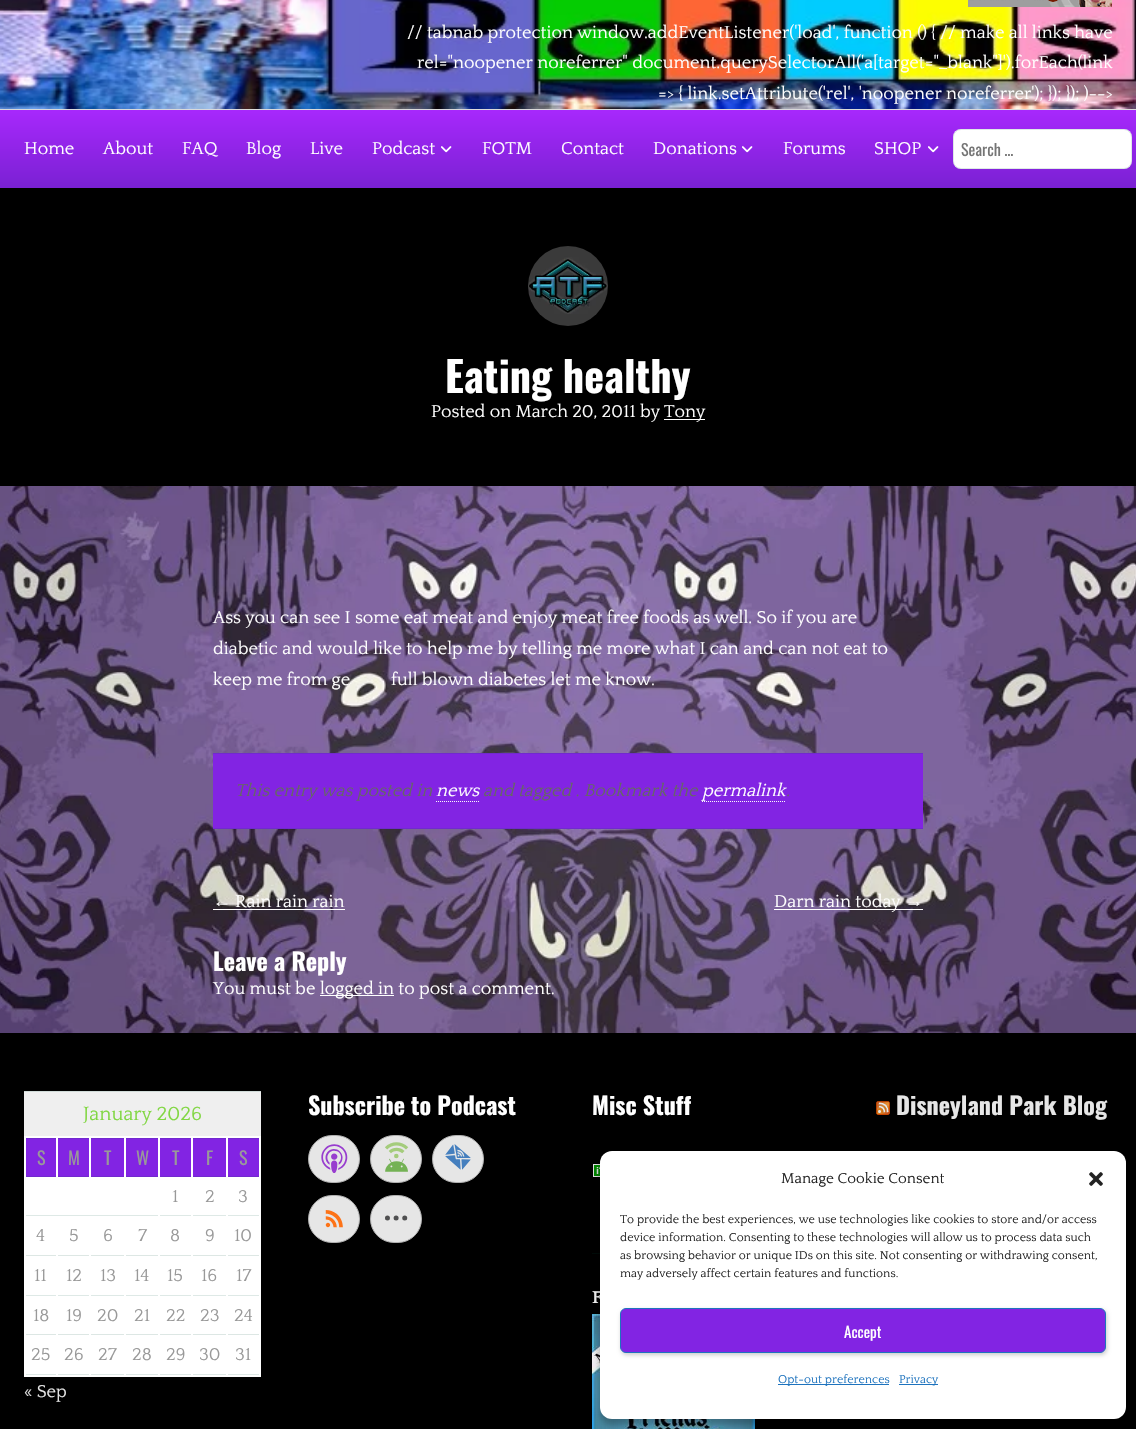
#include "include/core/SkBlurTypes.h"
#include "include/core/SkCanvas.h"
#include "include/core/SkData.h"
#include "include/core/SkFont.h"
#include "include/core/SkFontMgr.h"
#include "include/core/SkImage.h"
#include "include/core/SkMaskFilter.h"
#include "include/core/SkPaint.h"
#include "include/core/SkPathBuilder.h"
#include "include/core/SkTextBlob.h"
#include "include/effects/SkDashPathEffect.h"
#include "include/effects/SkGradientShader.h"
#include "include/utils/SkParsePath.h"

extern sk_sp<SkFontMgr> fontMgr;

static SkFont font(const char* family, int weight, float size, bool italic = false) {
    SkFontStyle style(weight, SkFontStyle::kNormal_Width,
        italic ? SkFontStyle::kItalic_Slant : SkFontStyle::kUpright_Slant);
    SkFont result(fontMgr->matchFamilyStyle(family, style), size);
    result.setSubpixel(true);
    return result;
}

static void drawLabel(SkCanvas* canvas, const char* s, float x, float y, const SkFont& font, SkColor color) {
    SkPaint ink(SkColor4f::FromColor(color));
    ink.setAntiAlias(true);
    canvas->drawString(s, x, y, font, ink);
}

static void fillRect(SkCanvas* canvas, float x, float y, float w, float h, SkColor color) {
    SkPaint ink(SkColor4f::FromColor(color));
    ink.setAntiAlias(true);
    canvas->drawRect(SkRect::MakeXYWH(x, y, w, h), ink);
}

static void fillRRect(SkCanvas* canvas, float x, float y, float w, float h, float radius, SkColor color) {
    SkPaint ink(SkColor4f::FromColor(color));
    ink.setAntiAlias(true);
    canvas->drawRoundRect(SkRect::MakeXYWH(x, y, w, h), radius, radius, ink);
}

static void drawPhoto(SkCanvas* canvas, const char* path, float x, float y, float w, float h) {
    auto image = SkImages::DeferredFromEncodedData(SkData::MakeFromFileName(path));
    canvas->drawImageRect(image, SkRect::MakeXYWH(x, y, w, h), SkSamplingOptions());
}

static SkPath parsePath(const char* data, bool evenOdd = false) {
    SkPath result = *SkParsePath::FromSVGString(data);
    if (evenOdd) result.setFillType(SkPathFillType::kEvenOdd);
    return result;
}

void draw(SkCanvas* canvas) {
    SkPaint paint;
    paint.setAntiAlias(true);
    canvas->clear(0xFFFFFFFF);
    drawPhoto(canvas, "assets/img1.png", 0, 486, 1136, 547);
    drawPhoto(canvas, "assets/img2.png", 0, 0, 1136, 109);
    drawPhoto(canvas, "assets/img3.png", 968, 0, 144, 7);
    SkFont font1 = font("Quattrocento", 400, 18);
    drawLabel(canvas, "// tabnab protection window.addEventListener('load', function () { // make all links have", 407, 38, font1, 0xFFFFFFFF);
    drawLabel(canvas, "rel=\"noopener noreferrer\" document.querySelectorAll('a[target=\"_blank\"]').forEach(link", 417, 68, font1, 0xFFFFFFFF);
    drawLabel(canvas, "=> { link.setAttribute('rel', 'noopener noreferrer'); }); }); )-->", 658, 99, font1, 0xFFFFFFFF);
    {
        const SkColor colors[] = {0xFFA728FC, 0xFF7A21D3};
        const float stops[] = {0, 1};
        const SkPoint ends[] = {{568, 110}, {568, 188}};
        paint.setShader(SkGradientShader::MakeLinear(ends, colors, stops, 2, SkTileMode::kClamp));
        paint.setAlpha(255);
    }
    canvas->drawRect(SkRect::MakeXYWH(0, 110, 1136, 78), paint);
    fillRect(canvas, 0, 109, 1136, 1, 0xFFDADADA);
    drawLabel(canvas, "Home", 24, 154, font1, 0xFFFFFFFF);
    drawLabel(canvas, "About", 103, 154, font1, 0xFFFFFFFF);
    drawLabel(canvas, "FAQ", 182, 154, font1, 0xFFFFFFFF);
    drawLabel(canvas, "Blog", 246, 154, font1, 0xFFFFFFFF);
    drawLabel(canvas, "Live", 310, 154, font1, 0xFFFFFFFF);
    drawLabel(canvas, "Podcast", 372, 154, font1, 0xFFFFFFFF);
    drawPhoto(canvas, "assets/img4.png", 441, 146, 11, 7);
    drawLabel(canvas, "FOTM", 482, 154, font1, 0xFFFFFFFF);
    drawLabel(canvas, "Contact", 561, 154, font1, 0xFFFFFFFF);
    drawLabel(canvas, "Donations", 653, 154, font1, 0xFFFFFFFF);
    drawPhoto(canvas, "assets/img4.png", 742, 146, 11, 7);
    drawLabel(canvas, "Forums", 783, 154, font1, 0xFFFFFFFF);
    drawLabel(canvas, "SHOP", 874, 154, font1, 0xFFFFFFFF);
    drawPhoto(canvas, "assets/img4.png", 928, 146, 11, 7);
    fillRRect(canvas, 953, 129, 179, 40, 8, 0xFFFFFFFF);
    paint.setStroke(true);
    paint.setStrokeWidth(1);
    paint.setShader(nullptr);
    paint.setColor(0x2103543F);
    canvas->drawRoundRect(SkRect::MakeXYWH(953.5f, 129.5f, 178, 39), 7.5f, 7.5f, paint);
    SkFont font2 = font("Oswald", 400, 16);
    drawLabel(canvas, "Search …", 961, 156, font2, 0xFF757575);
    fillRect(canvas, 0, 188, 1136, 298, 0xFF000000);
    drawPhoto(canvas, "assets/img5.png", 528, 246, 80, 80);
    SkFont font3 = font("Oswald", 700, 42);
    drawLabel(canvas, "Eating healthy", 445, 393, font3, 0xFFFFFFFF);
    drawLabel(canvas, "Posted on March 20, 2011 by", 431, 417, font1, 0xFFFFFFFF);
    fillRect(canvas, 664, 419, 41, 1, 0xFFFFFFFF);
    drawLabel(canvas, "Tony", 664, 417, font1, 0xFFFFFFFF);
    drawLabel(canvas, "Ass you can see I some eat meat and enjoy meat free foods as well. So if you are", 213, 623, font1, 0xFFFFFFFF);
    drawLabel(canvas, "diabetic and would like to help me by telling me more what I can and can not eat to", 213, 654, font1, 0xFFFFFFFF);
    drawLabel(canvas, "keep me from ge", 213, 685, font1, 0xFFFFFFFF);
    drawLabel(canvas, "full blown diabetes let me know.", 391, 685, font1, 0xFFFFFFFF);
    fillRect(canvas, 213, 754, 710, 74, 0xFF8224E3);
    fillRect(canvas, 213, 753, 710, 1, 0xFF712ACE);
    fillRect(canvas, 213, 828, 710, 1, 0xFF712ACE);
    SkFont font4 = font("Quattrocento", 400, 18, true);
    drawLabel(canvas, "This entry was posted in", 235, 796, font4, 0xFF666666);
    drawLabel(canvas, "news", 436, 796, font4, 0xFFFFFFFF);
    paint.setColor(0xFFFAFAFA);
    paint.setPathEffect(SkDashPathEffect::Make({{1, 1}}, 0));
    canvas->drawPath(parsePath("M436 801.5H479"), paint);
    paint.setPathEffect(nullptr);
    drawLabel(canvas, "and tagged . Bookmark the", 483, 796, font4, 0xFF666666);
    drawLabel(canvas, "permalink", 702, 796, font4, 0xFFFFFFFF);
    paint.setPathEffect(SkDashPathEffect::Make({{1, 1}}, 0));
    canvas->drawPath(parsePath("M702 801.5H786"), paint);
    paint.setPathEffect(nullptr);
    drawLabel(canvas, ".", 786, 796, font4, 0xFF666666);
    SkFont font5 = font("Liberation Serif", 400, 18);
    drawLabel(canvas, "←", 213, 907, font5, 0xFFFFFFFF);
    fillRect(canvas, 213, 909, 132, 1, 0xFFFFFFFF);
    drawLabel(canvas, "Rain rain rain", 235, 907, font1, 0xFFFFFFFF);
    fillRect(canvas, 774, 909, 149, 1, 0xFFFFFFFF);
    drawLabel(canvas, "Darn rain today", 774, 907, font1, 0xFFFFFFFF);
    drawLabel(canvas, "→", 905, 907, font5, 0xFFFFFFFF);
    SkFont font6 = font("Oswald", 700, 24);
    drawLabel(canvas, "Leave a Reply", 213, 971, font6, 0xFFFFFFFF);
    drawLabel(canvas, "You must be", 213, 994, font1, 0xFFFFFFFF);
    fillRect(canvas, 320, 995, 74, 1, 0xFFFFFFFF);
    drawLabel(canvas, "logged in to post a comment.", 320, 994, font1, 0xFFFFFFFF);
    fillRect(canvas, 0, 1033, 1136, 396, 0xFF000000);
    fillRect(canvas, 24, 1136, 237, 241, 0xFFFFFFFF);
    fillRect(canvas, 24, 1092, 237, 44, 0xFFEFEFEF);
    fillRect(canvas, 24, 1091, 237, 1, 0xFFD0DBD8);
    SkFont font7 = font("Quattrocento", 400, 20);
    drawLabel(canvas, "January 2026", 83, 1120, font7, 0xFF81D742);
    fillRect(canvas, 26, 1139, 30, 37, 0xFF8224E3);
    fillRect(canvas, 26, 1138, 30, 1, 0xFF712ACE);
    fillRect(canvas, 26, 1176, 30, 1, 0xFF712ACE);
    SkFont font8 = font("Oswald", 400, 18);
    drawLabel(canvas, "S", 37, 1165, font8, 0xFF999999);
    fillRect(canvas, 58, 1139, 31, 37, 0xFF8224E3);
    fillRect(canvas, 58, 1138, 31, 1, 0xFF712ACE);
    fillRect(canvas, 58, 1176, 31, 1, 0xFF712ACE);
    drawLabel(canvas, "M", 68, 1165, font8, 0xFF999999);
    fillRect(canvas, 91, 1139, 33, 37, 0xFF8224E3);
    fillRect(canvas, 91, 1138, 33, 1, 0xFF712ACE);
    fillRect(canvas, 91, 1176, 33, 1, 0xFF712ACE);
    drawLabel(canvas, "T", 104, 1165, font8, 0xFF999999);
    fillRect(canvas, 126, 1139, 32, 37, 0xFF8224E3);
    fillRect(canvas, 126, 1138, 32, 1, 0xFF712ACE);
    fillRect(canvas, 126, 1176, 32, 1, 0xFF712ACE);
    drawLabel(canvas, "W", 136, 1165, font8, 0xFF999999);
    fillRect(canvas, 160, 1139, 31, 37, 0xFF8224E3);
    fillRect(canvas, 160, 1138, 31, 1, 0xFF712ACE);
    fillRect(canvas, 160, 1176, 31, 1, 0xFF712ACE);
    drawLabel(canvas, "T", 172, 1165, font8, 0xFF999999);
    fillRect(canvas, 193, 1139, 33, 37, 0xFF8224E3);
    fillRect(canvas, 193, 1138, 33, 1, 0xFF712ACE);
    fillRect(canvas, 193, 1176, 33, 1, 0xFF712ACE);
    drawLabel(canvas, "F", 206, 1165, font8, 0xFF999999);
    fillRect(canvas, 228, 1139, 31, 37, 0xFF8224E3);
    fillRect(canvas, 228, 1138, 31, 1, 0xFF712ACE);
    fillRect(canvas, 228, 1176, 31, 1, 0xFF712ACE);
    drawLabel(canvas, "S", 239, 1165, font8, 0xFF999999);
    fillRect(canvas, 160, 1215, 31, 1, 0xFFDEE9E6);
    drawLabel(canvas, "1", 172, 1202, font1, 0xFF999999);
    fillRect(canvas, 193, 1215, 33, 1, 0xFFDEE9E6);
    drawLabel(canvas, "2", 205, 1202, font1, 0xFF999999);
    fillRect(canvas, 228, 1215, 31, 1, 0xFFDEE9E6);
    drawLabel(canvas, "3", 238, 1202, font1, 0xFF999999);
    fillRect(canvas, 26, 1215, 132, 1, 0xFFDEE9E6);
    fillRect(canvas, 26, 1255, 30, 1, 0xFFDDE7E4);
    drawLabel(canvas, "4", 36, 1241, font1, 0xFF999999);
    fillRect(canvas, 58, 1255, 31, 1, 0xFFDDE7E4);
    drawLabel(canvas, "5", 69, 1241, font1, 0xFF999999);
    fillRect(canvas, 91, 1255, 33, 1, 0xFFDDE7E4);
    drawLabel(canvas, "6", 103, 1241, font1, 0xFF999999);
    fillRect(canvas, 126, 1255, 32, 1, 0xFFDDE7E4);
    drawLabel(canvas, "7", 138, 1241, font1, 0xFF999999);
    fillRect(canvas, 160, 1255, 31, 1, 0xFFDDE7E4);
    drawLabel(canvas, "8", 170, 1241, font1, 0xFF999999);
    fillRect(canvas, 193, 1255, 33, 1, 0xFFDDE7E4);
    drawLabel(canvas, "9", 205, 1241, font1, 0xFF999999);
    fillRect(canvas, 228, 1255, 31, 1, 0xFFDDE7E4);
    drawLabel(canvas, "10", 234, 1241, font1, 0xFF999999);
    fillRect(canvas, 26, 1295, 30, 1, 0xFFDEE9E6);
    drawLabel(canvas, "11", 34, 1281, font1, 0xFF999999);
    fillRect(canvas, 58, 1295, 31, 1, 0xFFDEE9E6);
    drawLabel(canvas, "12", 66, 1281, font1, 0xFF999999);
    fillRect(canvas, 91, 1295, 33, 1, 0xFFDEE9E6);
    drawLabel(canvas, "13", 100, 1281, font1, 0xFF999999);
    fillRect(canvas, 126, 1295, 32, 1, 0xFFDEE9E6);
    drawLabel(canvas, "14", 134, 1281, font1, 0xFF999999);
    fillRect(canvas, 160, 1295, 31, 1, 0xFFDEE9E6);
    drawLabel(canvas, "15", 167, 1281, font1, 0xFF999999);
    fillRect(canvas, 193, 1295, 33, 1, 0xFFDEE9E6);
    drawLabel(canvas, "16", 201, 1281, font1, 0xFF999999);
    fillRect(canvas, 228, 1295, 31, 1, 0xFFDEE9E6);
    drawLabel(canvas, "17", 236, 1281, font1, 0xFF999999);
    fillRect(canvas, 26, 1334, 30, 1, 0xFFDDE7E4);
    drawLabel(canvas, "18", 33, 1321, font1, 0xFF999999);
    fillRect(canvas, 58, 1334, 31, 1, 0xFFDDE7E4);
    drawLabel(canvas, "19", 66, 1321, font1, 0xFF999999);
    fillRect(canvas, 91, 1334, 33, 1, 0xFFDDE7E4);
    drawLabel(canvas, "20", 97, 1321, font1, 0xFF999999);
    fillRect(canvas, 126, 1334, 32, 1, 0xFFDDE7E4);
    drawLabel(canvas, "21", 134, 1321, font1, 0xFF999999);
    fillRect(canvas, 160, 1334, 31, 1, 0xFFDDE7E4);
    drawLabel(canvas, "22", 166, 1321, font1, 0xFF999999);
    fillRect(canvas, 193, 1334, 33, 1, 0xFFDDE7E4);
    drawLabel(canvas, "23", 200, 1321, font1, 0xFF999999);
    fillRect(canvas, 228, 1334, 31, 1, 0xFFDDE7E4);
    drawLabel(canvas, "24", 234, 1321, font1, 0xFF999999);
    fillRect(canvas, 26, 1374, 30, 1, 0xFFDEE9E6);
    drawLabel(canvas, "25", 31, 1360, font1, 0xFF999999);
    fillRect(canvas, 58, 1374, 31, 1, 0xFFDEE9E6);
    drawLabel(canvas, "26", 64, 1360, font1, 0xFF999999);
    fillRect(canvas, 91, 1374, 33, 1, 0xFFDEE9E6);
    drawLabel(canvas, "27", 98, 1360, font1, 0xFF999999);
    fillRect(canvas, 126, 1374, 32, 1, 0xFFDEE9E6);
    drawLabel(canvas, "28", 132, 1360, font1, 0xFF999999);
    fillRect(canvas, 160, 1374, 31, 1, 0xFFDEE9E6);
    drawLabel(canvas, "29", 166, 1360, font1, 0xFF999999);
    fillRect(canvas, 193, 1374, 33, 1, 0xFFDEE9E6);
    drawLabel(canvas, "30", 199, 1360, font1, 0xFF999999);
    fillRect(canvas, 228, 1374, 31, 1, 0xFFDEE9E6);
    drawLabel(canvas, "31", 235, 1360, font1, 0xFF999999);
    drawLabel(canvas, "« Sep", 24, 1397, font1, 0xFFE6E6E6);
    drawLabel(canvas, "Subscribe to Podcast", 308, 1115, font6, 0xFFFFFFFF);
    paint.setStroke(false);
    paint.setColor(0xFFE6E6E6);
    canvas->drawRoundRect(SkRect::MakeXYWH(308.5f, 1135.5f, 51, 47), 23.5f, 23.5f, paint);
    paint.setStroke(true);
    paint.setColor(0xFFB0B0B0);
    canvas->drawRoundRect(SkRect::MakeXYWH(308.5f, 1135.5f, 51, 47), 23.5f, 23.5f, paint);
    drawPhoto(canvas, "assets/img6.png", 321, 1144, 27, 29);
    paint.setStroke(false);
    paint.setColor(0xFFE6E6E6);
    canvas->drawRoundRect(SkRect::MakeXYWH(370.5f, 1135.5f, 51, 47), 23.5f, 23.5f, paint);
    paint.setStroke(true);
    paint.setColor(0xFFB0B0B0);
    canvas->drawRoundRect(SkRect::MakeXYWH(370.5f, 1135.5f, 51, 47), 23.5f, 23.5f, paint);
    drawPhoto(canvas, "assets/img7.png", 385, 1142, 24, 30);
    paint.setStroke(false);
    paint.setColor(0xFFE6E6E6);
    canvas->drawRoundRect(SkRect::MakeXYWH(432.5f, 1135.5f, 51, 47), 23.5f, 23.5f, paint);
    paint.setStroke(true);
    paint.setColor(0xFFB0B0B0);
    canvas->drawRoundRect(SkRect::MakeXYWH(432.5f, 1135.5f, 51, 47), 23.5f, 23.5f, paint);
    drawPhoto(canvas, "assets/img8.png", 445, 1144, 26, 26);
    paint.setStroke(false);
    paint.setColor(0xFFE6E6E6);
    canvas->drawRoundRect(SkRect::MakeXYWH(308.5f, 1195.5f, 51, 47), 23.5f, 23.5f, paint);
    paint.setStroke(true);
    paint.setColor(0xFFB0B0B0);
    canvas->drawRoundRect(SkRect::MakeXYWH(308.5f, 1195.5f, 51, 47), 23.5f, 23.5f, paint);
    drawPhoto(canvas, "assets/img9.png", 325, 1210, 18, 18);
    paint.setStroke(false);
    paint.setColor(0xFFE6E6E6);
    canvas->drawRoundRect(SkRect::MakeXYWH(370.5f, 1195.5f, 51, 47), 23.5f, 23.5f, paint);
    paint.setStroke(true);
    paint.setColor(0xFFB0B0B0);
    canvas->drawRoundRect(SkRect::MakeXYWH(370.5f, 1195.5f, 51, 47), 23.5f, 23.5f, paint);
    drawPhoto(canvas, "assets/img10.png", 385, 1215, 23, 6);
    drawLabel(canvas, "Misc Stuff", 592, 1115, font6, 0xFFFFFFFF);
    drawPhoto(canvas, "assets/img11.png", 593, 1164, 7, 13);
    fillRect(canvas, 592, 1253, 8, 1, 0xFF000B08);
    SkFont font9 = font("Quattrocento", 700, 18);
    drawLabel(canvas, "F", 592, 1303, font9, 0xFFFFFFFF);
    drawPhoto(canvas, "assets/img12.png", 592, 1314, 163, 115);
    drawPhoto(canvas, "assets/img13.png", 876, 1101, 14, 14);
    drawLabel(canvas, "Disneyland Park Blog", 896, 1115, font6, 0xFFE6E6E6);
    paint.setStroke(false);
    paint.setColor(0x3B000000);
    paint.setMaskFilter(SkMaskFilter::MakeBlur(kNormal_SkBlurStyle, 3));
    canvas->drawRoundRect(SkRect::MakeXYWH(600, 1157, 526, 268), 12, 12, paint);
    paint.setMaskFilter(nullptr);
    paint.setColor(0x30000000);
    paint.setMaskFilter(SkMaskFilter::MakeBlur(kNormal_SkBlurStyle, 10));
    canvas->drawRoundRect(SkRect::MakeXYWH(600, 1161, 526, 268), 12, 12, paint);
    paint.setMaskFilter(nullptr);
    fillRRect(canvas, 600, 1151, 526, 268, 12, 0xFFFFFFFF);
    SkFont font10 = font("Quattrocento", 400, 15);
    drawLabel(canvas, "Manage Cookie Consent", 781, 1183, font10, 0xFF222222);
    drawPhoto(canvas, "assets/img14.png", 1089, 1172, 14, 14);
    SkFont font11 = font("Quattrocento", 400, 12);
    drawLabel(canvas, "To provide the best experiences, we use technologies like cookies to store and/or access", 620, 1223, font11, 0xFF222222);
    drawLabel(canvas, "device information. Consenting to these technologies will allow us to process data such", 620, 1241, font11, 0xFF222222);
    drawLabel(canvas, "as browsing behavior or unique IDs on this site. Not consenting or withdrawing consent,", 620, 1259, font11, 0xFF222222);
    drawLabel(canvas, "may adversely affect certain features and functions.", 620, 1277, font11, 0xFF222222);
    paint.setColor(0x33000000);
    paint.setMaskFilter(SkMaskFilter::MakeBlur(kNormal_SkBlurStyle, 2));
    canvas->drawRoundRect(SkRect::MakeXYWH(621, 1310, 486, 45), 6, 6, paint);
    paint.setMaskFilter(nullptr);
    paint.setColor(0xFF8224E3);
    canvas->drawRoundRect(SkRect::MakeXYWH(620.5f, 1308.5f, 485, 44), 5.5f, 5.5f, paint);
    paint.setStroke(true);
    paint.setColor(0xFF1E73BE);
    canvas->drawRoundRect(SkRect::MakeXYWH(620.5f, 1308.5f, 485, 44), 5.5f, 5.5f, paint);
    SkFont font12 = font("Oswald", 400, 15);
    drawLabel(canvas, "Accept", 844, 1338, font12, 0xFFFFFFFF);
    fillRect(canvas, 778, 1384, 111, 1, 0xFF1E73BE);
    drawLabel(canvas, "Opt-out preferences", 778, 1383, font11, 0xFF1E73BE);
    fillRect(canvas, 899, 1384, 39, 1, 0xFF1E73BE);
    drawLabel(canvas, "Privacy", 899, 1383, font11, 0xFF1E73BE);
}
